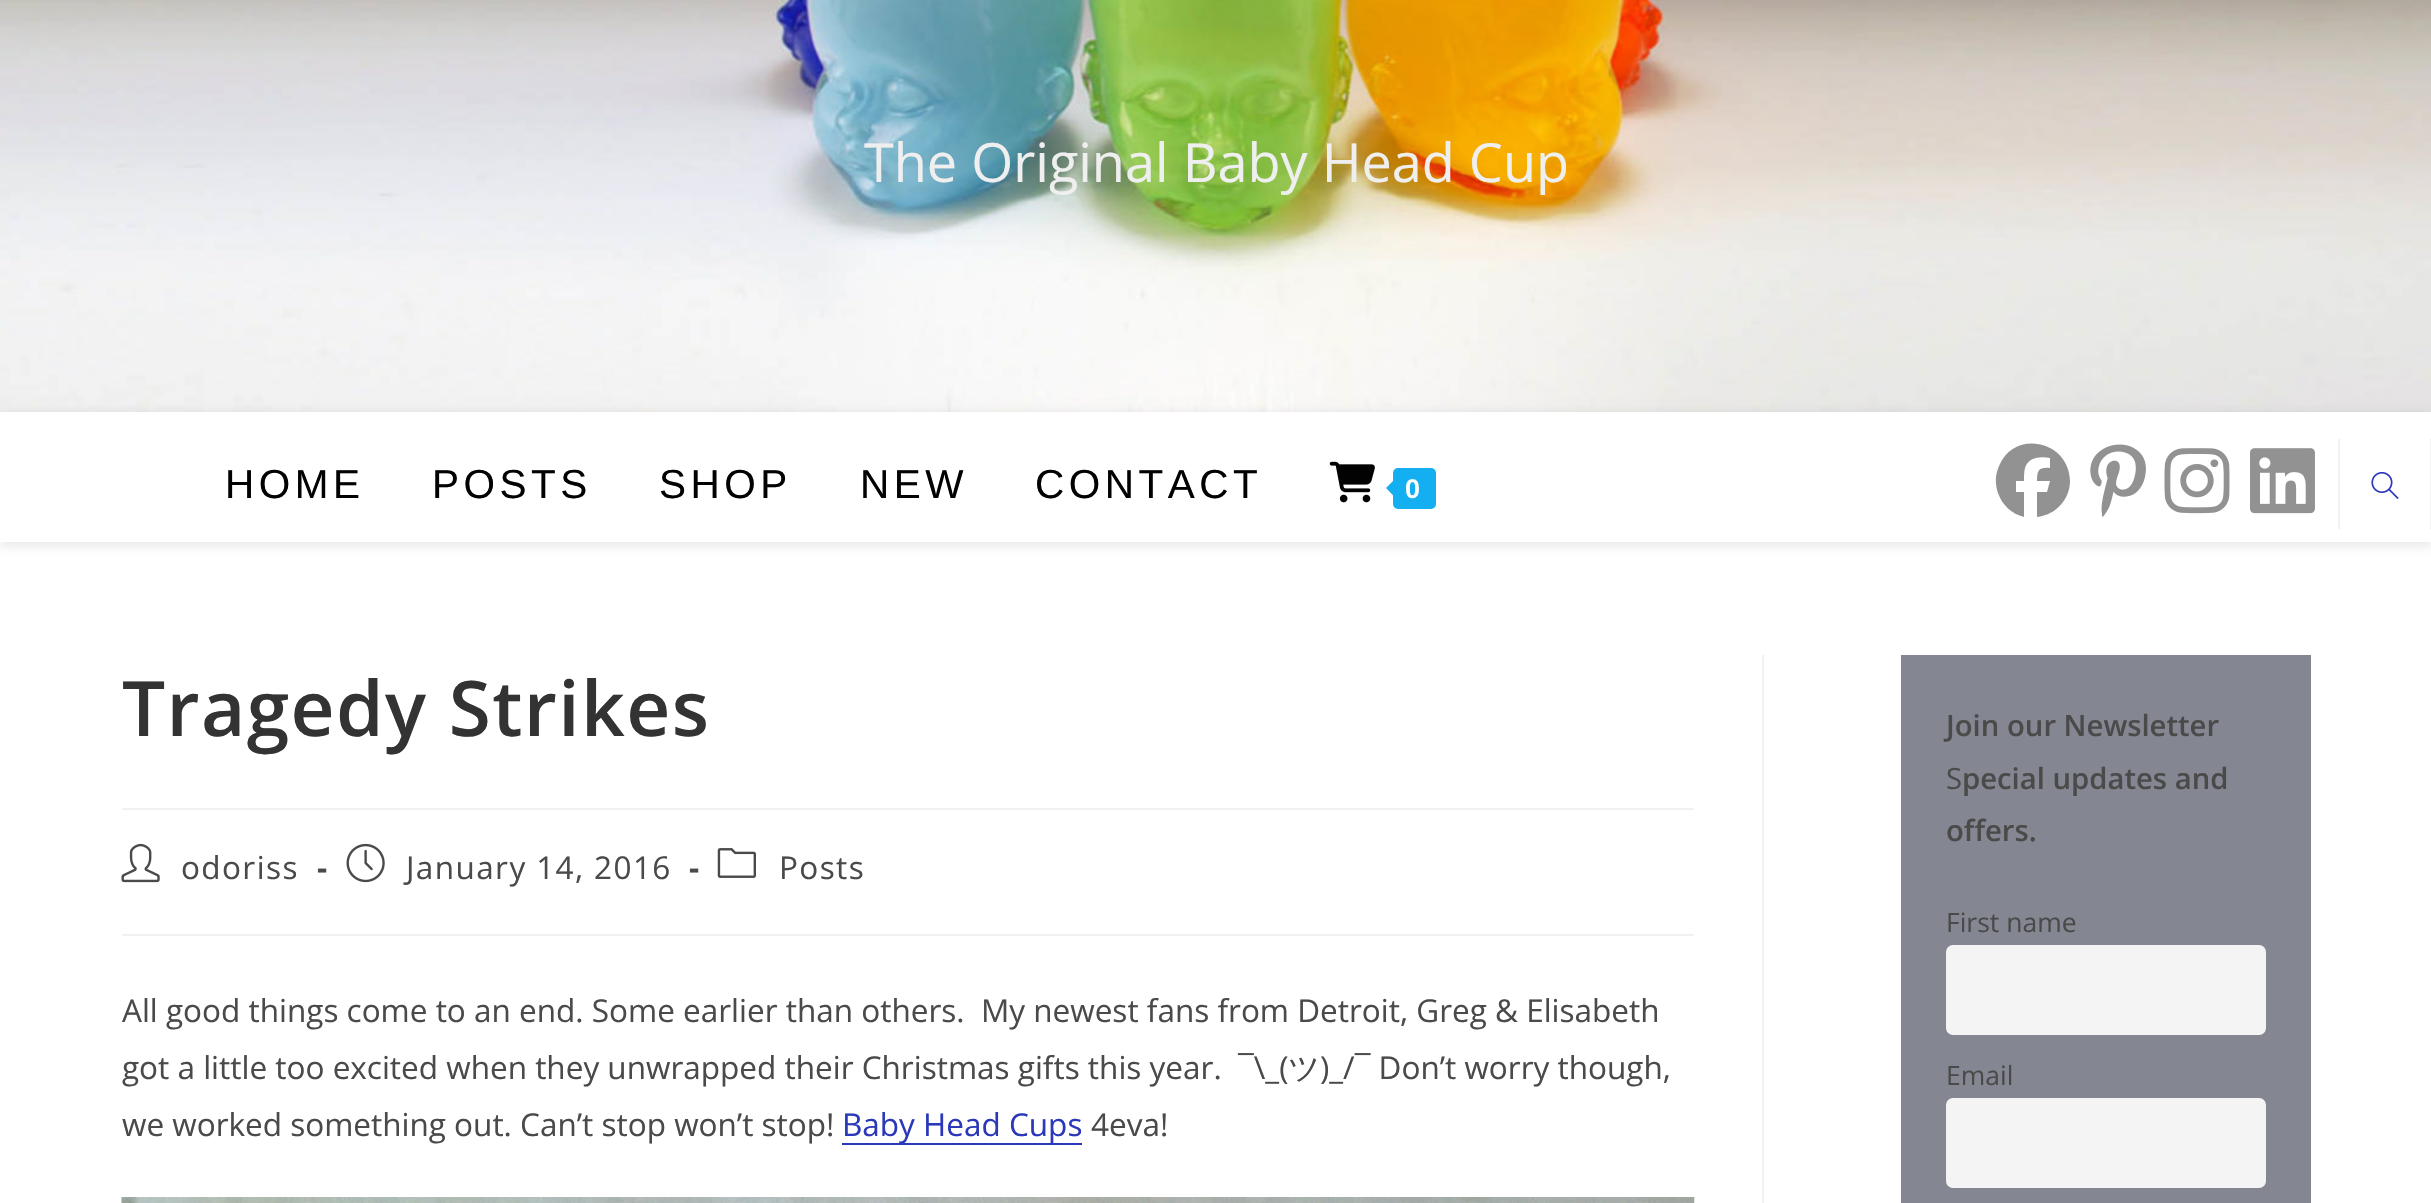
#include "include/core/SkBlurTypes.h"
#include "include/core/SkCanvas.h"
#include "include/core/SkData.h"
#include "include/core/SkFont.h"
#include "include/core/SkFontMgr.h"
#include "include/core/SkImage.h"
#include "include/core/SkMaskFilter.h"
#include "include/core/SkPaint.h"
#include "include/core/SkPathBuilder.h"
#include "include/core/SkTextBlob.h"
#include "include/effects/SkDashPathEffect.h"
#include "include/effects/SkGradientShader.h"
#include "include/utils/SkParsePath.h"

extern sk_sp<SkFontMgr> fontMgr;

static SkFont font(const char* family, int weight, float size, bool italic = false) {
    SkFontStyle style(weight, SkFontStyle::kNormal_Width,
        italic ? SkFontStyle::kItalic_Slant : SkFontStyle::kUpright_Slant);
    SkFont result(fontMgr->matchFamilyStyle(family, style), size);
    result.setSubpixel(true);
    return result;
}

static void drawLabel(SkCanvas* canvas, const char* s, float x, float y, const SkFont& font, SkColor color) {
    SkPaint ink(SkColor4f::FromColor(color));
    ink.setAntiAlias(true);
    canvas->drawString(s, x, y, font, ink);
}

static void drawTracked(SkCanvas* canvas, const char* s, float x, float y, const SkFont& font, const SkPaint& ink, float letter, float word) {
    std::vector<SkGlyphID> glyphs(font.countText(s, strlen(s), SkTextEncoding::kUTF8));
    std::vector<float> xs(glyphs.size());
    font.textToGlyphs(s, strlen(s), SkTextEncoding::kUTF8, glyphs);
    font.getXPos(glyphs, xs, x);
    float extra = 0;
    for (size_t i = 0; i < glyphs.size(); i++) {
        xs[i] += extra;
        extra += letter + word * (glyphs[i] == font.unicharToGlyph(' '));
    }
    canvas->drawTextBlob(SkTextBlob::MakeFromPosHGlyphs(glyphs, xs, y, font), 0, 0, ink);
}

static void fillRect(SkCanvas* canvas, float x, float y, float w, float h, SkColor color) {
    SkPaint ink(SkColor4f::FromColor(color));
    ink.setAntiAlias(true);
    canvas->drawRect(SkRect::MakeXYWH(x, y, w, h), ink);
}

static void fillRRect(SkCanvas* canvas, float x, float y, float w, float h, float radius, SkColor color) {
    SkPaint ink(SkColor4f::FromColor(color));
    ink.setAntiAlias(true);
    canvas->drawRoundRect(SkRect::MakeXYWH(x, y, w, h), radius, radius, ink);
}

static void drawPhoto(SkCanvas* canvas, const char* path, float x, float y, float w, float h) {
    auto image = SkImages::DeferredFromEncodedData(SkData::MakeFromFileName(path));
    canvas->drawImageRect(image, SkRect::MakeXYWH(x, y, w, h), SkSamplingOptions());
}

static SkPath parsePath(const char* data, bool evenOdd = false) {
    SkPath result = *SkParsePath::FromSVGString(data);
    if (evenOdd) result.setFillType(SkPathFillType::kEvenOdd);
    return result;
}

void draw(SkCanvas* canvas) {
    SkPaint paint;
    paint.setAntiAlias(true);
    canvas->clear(0xFFFFFFFF);
    drawPhoto(canvas, "assets/img1.png", 0, 0, 2431, 412);
    SkFont font1 = font("Open Sans", 400, 54);
    drawLabel(canvas, "The Original Baby Head Cup", 864, 182, font1, 0xFFEFEFEF);
    paint.setColor(0x1A000000);
    paint.setMaskFilter(SkMaskFilter::MakeBlur(kNormal_SkBlurStyle, 5.5f));
    canvas->drawRect(SkRect::MakeXYWH(0, 414, 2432, 131), paint);
    paint.setMaskFilter(nullptr);
    fillRect(canvas, 0, 412, 2431, 130, 0xFFFFFFFF);
    SkFont font2 = font("Liberation Sans", 400, 40.5f);
    paint.setColor(0xFF020202);
    drawTracked(canvas, "HOME", 225, 498, font2, paint, 4.5f, 0);
    drawTracked(canvas, "POSTS", 432, 498, font2, paint, 4.5f, 0);
    drawTracked(canvas, "SHOP", 659, 498, font2, paint, 4.5f, 0);
    drawTracked(canvas, "NEW", 860, 498, font2, paint, 4.5f, 0);
    drawTracked(canvas, "CONTACT", 1035, 498, font2, paint, 4.5f, 0);
    drawPhoto(canvas, "assets/img2.png", 1329, 461, 46, 42);
    fillRRect(canvas, 1393, 468, 43, 41, 5, 0xFF13AFF0);
    paint.setColor(0xFF13AFF0);
    canvas->drawPath(parsePath("M1397 477V499.5L1386 488Z"), paint);
    SkFont font3 = font("Liberation Sans", 700, 27);
    paint.setColor(0xFFFFFFFF);
    drawTracked(canvas, "0", 1405, 498, font3, paint, 4.5f, 0);
    paint.setColor(0xFF929292);
    canvas->drawPath(parsePath("M2070 481C2069 440 2014 429 1999 466C1995 475 1995 484 1998 493C2002 505 2012 514 2024 517V492H2016V481H2024C2024 476 2024 472 2025 468C2028 457 2041 456 2050 458V468C2039 467 2037 470 2037 481H2050L2047 492H2037V517C2056 515 2070 499 2070 481Z"), paint);
    drawPhoto(canvas, "assets/img3.png", 2090, 444, 56, 73);
    drawPhoto(canvas, "assets/img4.png", 2164, 448, 66, 66);
    drawPhoto(canvas, "assets/img5.png", 2250, 448, 65, 66);
    fillRect(canvas, 2430, 439, 1, 90, 0xFFF1F1F1);
    fillRect(canvas, 2338, 439, 2, 90, 0xFFF1F1F1);
    drawPhoto(canvas, "assets/img6.png", 2371, 471, 28, 28);
    fillRect(canvas, 1762, 655, 2, 548, 0xFFF1F1F1);
    fillRect(canvas, 122, 808, 1572, 2, 0xFFF1F1F1);
    SkFont font4 = font("Open Sans", 600, 76.5f);
    paint.setColor(0xFF333333);
    drawTracked(canvas, "Tragedy Strikes", 122, 736, font4, paint, 1.4f, 0);
    fillRect(canvas, 122, 934, 1572, 2, 0xFFF1F1F1);
    drawPhoto(canvas, "assets/img7.png", 121, 843, 39, 40);
    SkFont font5 = font("Open Sans", 400, 31.5f);
    paint.setColor(0xFF4A4A4A);
    drawTracked(canvas, "odoriss", 181, 879, font5, paint, 1.4f, 0);
    SkFont font6 = font("Open Sans", 700, 31.5f);
    drawTracked(canvas, "-", 317, 879, font6, paint, 1.4f, 0);
    drawPhoto(canvas, "assets/img8.png", 346, 843, 39, 40);
    drawTracked(canvas, "January 14, 2016", 406, 879, font5, paint, 1.4f, 0);
    drawTracked(canvas, "-", 689, 879, font6, paint, 1.4f, 0);
    drawPhoto(canvas, "assets/img9.png", 717, 848, 39, 30);
    drawTracked(canvas, "Posts", 779, 879, font5, paint, 1.4f, 0);
    drawLabel(canvas, "All good things come to an end. Some earlier than others.  My newest fans from Detroit, Greg & Elisabeth", 122, 1022, font5, 0xFF4A4A4A);
    drawLabel(canvas, "got a little too excited when they unwrapped their Christmas gifts this year.  ¯\\_(", 122, 1079, font5, 0xFF4A4A4A);
    SkFont font7 = font("WenQuanYi Zen Hei", 500, 31.5f);
    drawLabel(canvas, "ツ", 1288, 1079, font7, 0xFF4A4A4A);
    drawLabel(canvas, ")_/¯ Don’t worry though,", 1320, 1079, font5, 0xFF4A4A4A);
    drawLabel(canvas, "we worked something out. Can’t stop won’t stop!", 122, 1136, font5, 0xFF4A4A4A);
    fillRect(canvas, 842, 1143, 240, 2, 0xFF2C38BA);
    drawLabel(canvas, "Baby Head Cups", 842, 1136, font5, 0xFF2C38BA);
    drawLabel(canvas, "4eva!", 1091, 1136, font5, 0xFF4A4A4A);
    drawPhoto(canvas, "assets/img10.png", 121, 1197, 1574, 6);
    fillRect(canvas, 1901, 655, 410, 548, 0xFF848792);
    SkFont font8 = font("Open Sans", 600, 29.25f);
    drawLabel(canvas, "Join our Newsletter", 1946, 736, font8, 0xFF4A4A4A);
    SkFont font9 = font("Open Sans", 400, 29.25f);
    drawLabel(canvas, "S", 1946, 789, font9, 0xFF4A4A4A);
    drawLabel(canvas, "pecial updates and", 1962, 789, font8, 0xFF4A4A4A);
    drawLabel(canvas, "offers.", 1946, 841, font8, 0xFF4A4A4A);
    SkFont font10 = font("Open Sans", 400, 26.5f);
    drawLabel(canvas, "First name", 1946, 932, font10, 0xFF4A4A4A);
    fillRRect(canvas, 1946, 945, 320, 90, 7, 0xFFF4F4F4);
    drawLabel(canvas, "Email", 1946, 1085, font10, 0xFF4A4A4A);
    fillRRect(canvas, 1946, 1098, 320, 90, 7, 0xFFF4F4F4);
}
